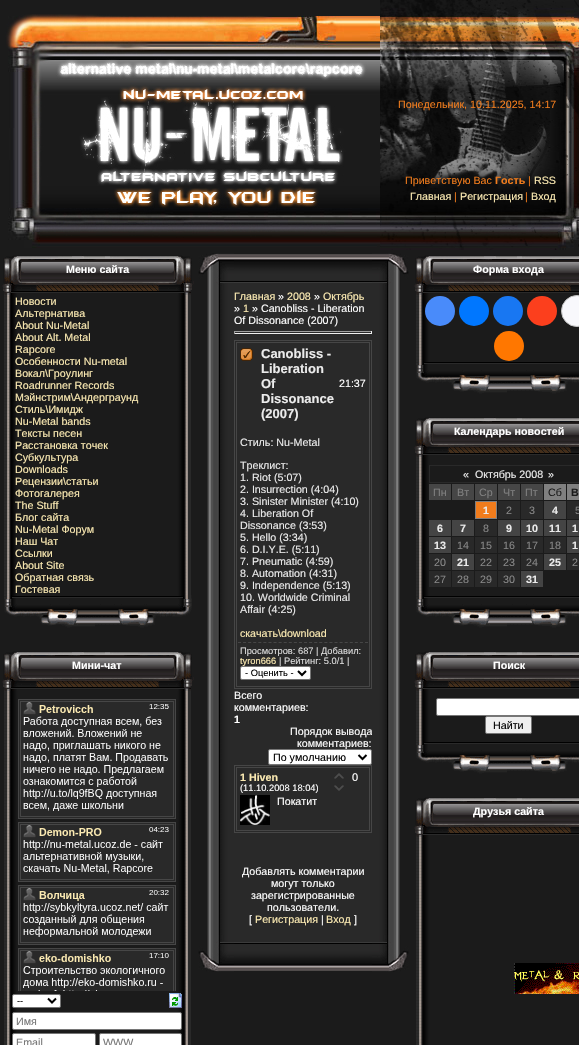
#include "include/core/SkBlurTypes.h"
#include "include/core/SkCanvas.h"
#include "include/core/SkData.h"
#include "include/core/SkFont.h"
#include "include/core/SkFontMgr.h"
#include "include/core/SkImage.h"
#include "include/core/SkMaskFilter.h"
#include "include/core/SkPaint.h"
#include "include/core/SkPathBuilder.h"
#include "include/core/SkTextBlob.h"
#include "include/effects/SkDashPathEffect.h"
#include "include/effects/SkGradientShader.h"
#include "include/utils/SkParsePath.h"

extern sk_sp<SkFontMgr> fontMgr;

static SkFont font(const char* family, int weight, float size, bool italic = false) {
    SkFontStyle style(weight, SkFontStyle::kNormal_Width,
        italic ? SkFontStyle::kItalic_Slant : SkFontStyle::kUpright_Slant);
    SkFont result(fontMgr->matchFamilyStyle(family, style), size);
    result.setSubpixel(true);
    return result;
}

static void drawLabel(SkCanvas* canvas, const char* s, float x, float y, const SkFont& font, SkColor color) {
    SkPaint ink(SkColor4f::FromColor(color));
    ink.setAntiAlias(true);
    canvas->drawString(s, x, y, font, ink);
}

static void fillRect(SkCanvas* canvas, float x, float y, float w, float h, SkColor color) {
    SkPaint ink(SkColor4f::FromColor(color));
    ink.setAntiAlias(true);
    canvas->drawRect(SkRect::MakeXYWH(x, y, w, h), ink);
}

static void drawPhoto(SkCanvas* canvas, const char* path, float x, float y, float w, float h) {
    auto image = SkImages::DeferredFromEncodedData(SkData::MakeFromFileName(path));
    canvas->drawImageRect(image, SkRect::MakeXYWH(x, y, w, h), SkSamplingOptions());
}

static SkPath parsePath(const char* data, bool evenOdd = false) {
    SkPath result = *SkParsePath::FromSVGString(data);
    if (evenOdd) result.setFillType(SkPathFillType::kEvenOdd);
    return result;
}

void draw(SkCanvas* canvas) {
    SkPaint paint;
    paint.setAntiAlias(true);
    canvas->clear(0xFF1B1B1B);
    drawPhoto(canvas, "assets/img1.png", 377, 16, 3, 228);
    drawPhoto(canvas, "assets/img2.png", 0, 14, 377, 234);
    drawPhoto(canvas, "assets/img3.png", 380, 0, 199, 250);
    SkFont font1 = font("Liberation Sans", 400, 10.7f);
    drawLabel(canvas, "Понедельник, 10.11.2025, 14:17", 398, 108, font1, 0xFFF17C1C);
    drawLabel(canvas, "Приветствую Вас", 405, 184, font1, 0xFFF17C1C);
    SkFont font2 = font("Liberation Sans", 700, 10.7f);
    drawLabel(canvas, "Гость", 495, 184, font2, 0xFFF17C1C);
    drawLabel(canvas, "|", 528, 184, font1, 0xFFF17C1C);
    drawLabel(canvas, "RSS", 534, 184, font1, 0xFFFBEAB2);
    drawLabel(canvas, "Главная", 410, 200, font1, 0xFFFBEAB2);
    drawLabel(canvas, "|", 454, 200, font1, 0xFFF17C1C);
    drawLabel(canvas, "Регистрация", 460, 200, font1, 0xFFFBEAB2);
    drawLabel(canvas, "|", 525, 200, font1, 0xFFF17C1C);
    drawLabel(canvas, "Вход", 531, 200, font1, 0xFFFBEAB2);
    drawPhoto(canvas, "assets/img4.png", 0, 250, 194, 384);
    drawPhoto(canvas, "assets/img5.png", 2, 250, 192, 45);
    drawLabel(canvas, "Меню сайта", 66, 273, font2, 0xFFFFFFFF);
    drawLabel(canvas, "Новости", 15, 305, font1, 0xFFFBEAB2);
    drawLabel(canvas, "Альтернатива", 15, 317, font1, 0xFFFBEAB2);
    drawLabel(canvas, "About Nu-Metal", 15, 329, font1, 0xFFFBEAB2);
    drawLabel(canvas, "About Alt. Metal", 15, 341, font1, 0xFFFBEAB2);
    drawLabel(canvas, "Rapcore", 15, 353, font1, 0xFFFBEAB2);
    drawLabel(canvas, "Особенности Nu-metal", 15, 365, font1, 0xFFFBEAB2);
    drawLabel(canvas, "Вокал\\Гроулинг", 15, 377, font1, 0xFFFBEAB2);
    drawLabel(canvas, "Roadrunner Records", 15, 389, font1, 0xFFFBEAB2);
    drawLabel(canvas, "Мэйнстрим\\Aндерграунд", 15, 401, font1, 0xFFFBEAB2);
    drawLabel(canvas, "Стиль\\Имидж", 15, 413, font1, 0xFFFBEAB2);
    drawLabel(canvas, "Nu-Metal bands", 15, 425, font1, 0xFFFBEAB2);
    drawLabel(canvas, "Тексты песен", 15, 437, font1, 0xFFFBEAB2);
    drawLabel(canvas, "Расстановка точек", 15, 449, font1, 0xFFFBEAB2);
    drawLabel(canvas, "Субкультура", 15, 461, font1, 0xFFFBEAB2);
    drawLabel(canvas, "Downloads", 15, 473, font1, 0xFFFBEAB2);
    drawLabel(canvas, "Рецензии\\статьи", 15, 485, font1, 0xFFFBEAB2);
    drawLabel(canvas, "Фотогалерея", 15, 497, font1, 0xFFFBEAB2);
    drawLabel(canvas, "The Stuff", 15, 509, font1, 0xFFFBEAB2);
    drawLabel(canvas, "Блог сайта", 15, 521, font1, 0xFFFBEAB2);
    drawLabel(canvas, "Nu-Metal Форум", 15, 533, font1, 0xFFFBEAB2);
    drawLabel(canvas, "Наш Чат", 15, 545, font1, 0xFFFBEAB2);
    drawLabel(canvas, "Ссылки", 15, 557, font1, 0xFFFBEAB2);
    drawLabel(canvas, "About Site", 15, 569, font1, 0xFFFBEAB2);
    drawLabel(canvas, "Обратная связь", 15, 581, font1, 0xFFFBEAB2);
    drawLabel(canvas, "Гостевая", 15, 593, font1, 0xFFFBEAB2);
    drawPhoto(canvas, "assets/img6.png", 4, 595, 188, 39);
    drawPhoto(canvas, "assets/img7.png", 0, 646, 194, 399);
    drawPhoto(canvas, "assets/img5.png", 2, 646, 192, 45);
    drawLabel(canvas, "Мини-чат", 72, 669, font2, 0xFFFFFFFF);
    drawPhoto(canvas, "assets/img8.png", 18, 699, 158, 292);
    paint.setColor(0xFFFFFFFF);
    canvas->drawRoundRect(SkRect::MakeXYWH(12.5f, 994.5f, 48, 13), 1.5f, 1.5f, paint);
    paint.setStroke(true);
    paint.setStrokeWidth(1);
    paint.setColor(0xFF767676);
    canvas->drawRoundRect(SkRect::MakeXYWH(12.5f, 994.5f, 48, 13), 1.5f, 1.5f, paint);
    paint.setStrokeWidth(2);
    paint.setColor(0xFF000000);
    canvas->drawPath(parsePath("M48 998.5L52 1002.5L56 998.5"), paint);
    SkFont font3 = font("Liberation Sans", 400, 9.3f);
    drawLabel(canvas, "--", 17, 1004, font3, 0xFF000000);
    drawPhoto(canvas, "assets/img9.png", 169, 993, 13, 15);
    paint.setStroke(false);
    paint.setColor(0xFFFFFFFF);
    canvas->drawRoundRect(SkRect::MakeXYWH(12.5f, 1012.5f, 169, 17), 1.5f, 1.5f, paint);
    paint.setStroke(true);
    paint.setStrokeWidth(1);
    paint.setColor(0xFF767676);
    canvas->drawRoundRect(SkRect::MakeXYWH(12.5f, 1012.5f, 169, 17), 1.5f, 1.5f, paint);
    drawLabel(canvas, "Имя", 16, 1025, font1, 0xFF757575);
    paint.setStroke(false);
    paint.setColor(0xFFFFFFFF);
    canvas->drawRoundRect(SkRect::MakeXYWH(12.5f, 1033.5f, 83, 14), 1.5f, 1.5f, paint);
    paint.setStroke(true);
    paint.setColor(0xFF767676);
    canvas->drawRoundRect(SkRect::MakeXYWH(12.5f, 1033.5f, 83, 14), 1.5f, 1.5f, paint);
    drawLabel(canvas, "Email", 16, 1046, font1, 0xFF757575);
    paint.setStroke(false);
    paint.setColor(0xFFFFFFFF);
    canvas->drawRoundRect(SkRect::MakeXYWH(99.5f, 1033.5f, 82, 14), 1.5f, 1.5f, paint);
    paint.setStroke(true);
    paint.setColor(0xFF767676);
    canvas->drawRoundRect(SkRect::MakeXYWH(99.5f, 1033.5f, 82, 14), 1.5f, 1.5f, paint);
    drawLabel(canvas, "WWW", 103, 1046, font1, 0xFF757575);
    drawPhoto(canvas, "assets/img10.png", 198, 253, 36, 37);
    drawPhoto(canvas, "assets/img11.png", 234, 254, 138, 36);
    drawPhoto(canvas, "assets/img12.png", 372, 253, 37, 37);
    drawPhoto(canvas, "assets/img13.png", 207, 290, 27, 645);
    fillRect(canvas, 234, 290, 138, 645, 0xFF292929);
    drawLabel(canvas, "Главная", 234, 300, font1, 0xFFFBEAB2);
    drawLabel(canvas, "»", 278, 300, font1, 0xFFFFFFFF);
    drawLabel(canvas, "2008", 287, 300, font1, 0xFFFBEAB2);
    drawLabel(canvas, "»", 314, 300, font1, 0xFFFFFFFF);
    drawLabel(canvas, "Октябрь", 323, 300, font1, 0xFFFBEAB2);
    drawLabel(canvas, "»", 234, 312, font1, 0xFFFFFFFF);
    drawLabel(canvas, "1", 243, 312, font1, 0xFFFBEAB2);
    drawLabel(canvas, "» Canobliss - Liberation", 252, 312, font1, 0xFFFFFFFF);
    drawLabel(canvas, "Of Dissonance (2007)", 234, 324, font1, 0xFFFFFFFF);
    fillRect(canvas, 234, 331, 138, 1, 0xFF9F9F9F);
    fillRect(canvas, 371, 331, 1, 3, 0xFFEEEEEE);
    fillRect(canvas, 234, 333, 138, 1, 0xFFEEEEEE);
    fillRect(canvas, 234, 331, 1, 3, 0xFF9F9F9F);
    paint.setColor(0xFF464646);
    canvas->drawRect(SkRect::MakeXYWH(234.5f, 340.5f, 137, 348), paint);
    canvas->drawRect(SkRect::MakeXYWH(236.5f, 342.5f, 133, 344), paint);
    drawPhoto(canvas, "assets/img14.png", 240, 348, 13, 13);
    SkFont font4 = font("Liberation Sans", 700, 13);
    drawLabel(canvas, "Canobliss -", 261, 358, font4, 0xFFEBEBEB);
    drawLabel(canvas, "Liberation", 261, 373, font4, 0xFFEBEBEB);
    drawLabel(canvas, "Of", 261, 388, font4, 0xFFEBEBEB);
    drawLabel(canvas, "Dissonance", 261, 403, font4, 0xFFEBEBEB);
    drawLabel(canvas, "(2007)", 261, 418, font4, 0xFFEBEBEB);
    drawLabel(canvas, "21:37", 339, 387, font1, 0xFFFFFFFF);
    drawLabel(canvas, "Стиль: Nu-Metal", 240, 446, font1, 0xFFEBEBEB);
    drawLabel(canvas, "Треклист:", 240, 469, font1, 0xFFEBEBEB);
    drawLabel(canvas, "1. Riot (5:07)", 240, 481, font1, 0xFFEBEBEB);
    drawLabel(canvas, "2. Insurrection (4:04)", 240, 493, font1, 0xFFEBEBEB);
    drawLabel(canvas, "3. Sinister Minister (4:10)", 240, 505, font1, 0xFFEBEBEB);
    drawLabel(canvas, "4. Liberation Of", 240, 517, font1, 0xFFEBEBEB);
    drawLabel(canvas, "Dissonance (3:53)", 240, 529, font1, 0xFFEBEBEB);
    drawLabel(canvas, "5. Hello (3:34)", 240, 541, font1, 0xFFEBEBEB);
    drawLabel(canvas, "6. D.I.Y.E. (5:11)", 240, 553, font1, 0xFFEBEBEB);
    drawLabel(canvas, "7. Pneumatic (4:59)", 240, 565, font1, 0xFFEBEBEB);
    drawLabel(canvas, "8. Automation (4:31)", 240, 577, font1, 0xFFEBEBEB);
    drawLabel(canvas, "9. Independence (5:13)", 240, 589, font1, 0xFFEBEBEB);
    drawLabel(canvas, "10. Worldwide Criminal", 240, 601, font1, 0xFFEBEBEB);
    drawLabel(canvas, "Affair (4:25)", 240, 613, font1, 0xFFEBEBEB);
    drawLabel(canvas, "скачать\\download", 240, 637, font1, 0xFFFBEAB2);
    paint.setPathEffect(SkDashPathEffect::Make({{3, 2.08f}}, 0));
    canvas->drawPath(parsePath("M238 642.5H368"), paint);
    paint.setPathEffect(nullptr);
    drawLabel(canvas, "Просмотров: 687 | Добавил:", 240, 654, font3, 0xFFDDDDDD);
    drawLabel(canvas, "tyron666", 240, 664, font3, 0xFFFBEAB2);
    drawLabel(canvas, "| Рейтинг: 5.0/1 |", 279, 664, font3, 0xFFDDDDDD);
    paint.setStroke(false);
    paint.setColor(0xFFFFFFFF);
    canvas->drawRoundRect(SkRect::MakeXYWH(240.5f, 666.5f, 70, 13), 1.5f, 1.5f, paint);
    paint.setStroke(true);
    paint.setColor(0xFF767676);
    canvas->drawRoundRect(SkRect::MakeXYWH(240.5f, 666.5f, 70, 13), 1.5f, 1.5f, paint);
    paint.setStrokeWidth(2);
    paint.setColor(0xFF000000);
    canvas->drawPath(parsePath("M298 671L302 675L306 671"), paint);
    drawLabel(canvas, "- Оценить -", 245, 676, font3, 0xFF000000);
    drawLabel(canvas, "Всего", 234, 699, font1, 0xFFFFFFFF);
    drawLabel(canvas, "комментариев:", 234, 711, font1, 0xFFFFFFFF);
    drawLabel(canvas, "1", 234, 723, font2, 0xFFFFFFFF);
    drawLabel(canvas, "Порядок вывода", 290, 735, font1, 0xFFFFFFFF);
    drawLabel(canvas, "комментариев:", 297, 747, font1, 0xFFFFFFFF);
    paint.setStroke(false);
    paint.setColor(0xFFFFFFFF);
    canvas->drawRoundRect(SkRect::MakeXYWH(268.5f, 749.5f, 103, 15), 1.5f, 1.5f, paint);
    paint.setStroke(true);
    paint.setStrokeWidth(1);
    paint.setColor(0xFF767676);
    canvas->drawRoundRect(SkRect::MakeXYWH(268.5f, 749.5f, 103, 15), 1.5f, 1.5f, paint);
    paint.setStrokeWidth(2);
    paint.setColor(0xFF000000);
    canvas->drawPath(parsePath("M358.5 755L362.5 759L366.5 755"), paint);
    drawLabel(canvas, "По умолчанию", 273, 761, font1, 0xFF000000);
    paint.setStrokeWidth(1);
    paint.setColor(0xFF464646);
    canvas->drawRect(SkRect::MakeXYWH(234.5f, 765.5f, 137, 67), paint);
    canvas->drawRect(SkRect::MakeXYWH(236.5f, 767.5f, 133, 63), paint);
    drawLabel(canvas, "1 Hiven", 240, 781, font2, 0xFFFBEAB2);
    drawLabel(canvas, "(11.10.2008 18:04)", 240, 791, font3, 0xFFFFFFFF);
    drawPhoto(canvas, "assets/img15.png", 334, 773, 10, 6);
    SkFont font5 = font("Liberation Sans", 400, 11);
    drawLabel(canvas, "0", 352, 781, font5, 0xFFFFFFFF);
    drawPhoto(canvas, "assets/img16.png", 334, 785, 10, 6);
    drawPhoto(canvas, "assets/img17.png", 240, 795, 30, 30);
    drawLabel(canvas, "Покатит", 277, 805, font1, 0xFFFFFFFF);
    drawLabel(canvas, "Добавлять комментарии", 242, 875, font1, 0xFFFFFFFF);
    drawLabel(canvas, "могут только", 271, 887, font1, 0xFFFFFFFF);
    drawLabel(canvas, "зарегистрированные", 251, 899, font1, 0xFFFFFFFF);
    drawLabel(canvas, "пользователи.", 267, 911, font1, 0xFFFFFFFF);
    drawLabel(canvas, "[", 249, 923, font1, 0xFFFFFFFF);
    drawLabel(canvas, "Регистрация", 255, 923, font1, 0xFFFBEAB2);
    drawLabel(canvas, "|", 321, 923, font1, 0xFFFFFFFF);
    drawLabel(canvas, "Вход", 326, 923, font1, 0xFFFBEAB2);
    drawLabel(canvas, "]", 354, 923, font1, 0xFFFFFFFF);
    drawPhoto(canvas, "assets/img18.png", 372, 290, 28, 645);
    drawPhoto(canvas, "assets/img19.png", 198, 935, 36, 37);
    drawPhoto(canvas, "assets/img20.png", 234, 935, 138, 36);
    drawPhoto(canvas, "assets/img21.png", 372, 935, 37, 37);
    drawPhoto(canvas, "assets/img22.png", 412, 250, 167, 150);
    drawPhoto(canvas, "assets/img23.png", 414, 250, 165, 45);
    drawLabel(canvas, "Форма входа", 473, 273, font2, 0xFFFFFFFF);
    paint.setStroke(false);
    paint.setColor(0xFF498BFA);
    canvas->drawCircle(440, 311, 15, paint);
    paint.setColor(0xFF0077FF);
    canvas->drawCircle(474, 311, 15, paint);
    paint.setColor(0xFF1877F2);
    canvas->drawCircle(508, 311, 15, paint);
    paint.setColor(0xFFFC3F1D);
    canvas->drawCircle(542, 311, 15, paint);
    paint.setColor(0xFFF8F8FC);
    canvas->drawCircle(577, 311, 15.5f, paint);
    paint.setStroke(true);
    paint.setColor(0xFFC4C4C4);
    canvas->drawCircle(577, 311, 15.5f, paint);
    paint.setStroke(false);
    paint.setColor(0xFFFF7700);
    canvas->drawCircle(509, 346, 15, paint);
    drawPhoto(canvas, "assets/img24.png", 416, 361, 163, 39);
    drawPhoto(canvas, "assets/img25.png", 412, 412, 167, 222);
    drawPhoto(canvas, "assets/img23.png", 414, 412, 165, 45);
    drawLabel(canvas, "Календарь новостей", 454, 435, font2, 0xFFFFFFFF);
    paint.setStroke(true);
    paint.setColor(0xFF292929);
    canvas->drawRect(SkRect::MakeXYWH(429.5f, 465.5f, 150, 17), paint);
    drawLabel(canvas, "«", 463, 478, font1, 0xFFEBEBEB);
    drawLabel(canvas, "Октябрь 2008", 475, 478, font1, 0xFFEBEBEB);
    drawLabel(canvas, "»", 548, 478, font1, 0xFFEBEBEB);
    fillRect(canvas, 429, 484, 22, 16, 0xFF464646);
    drawLabel(canvas, "Пн", 433, 496, font1, 0xFF808080);
    fillRect(canvas, 452, 484, 22, 16, 0xFF464646);
    drawLabel(canvas, "Вт", 457, 496, font1, 0xFF808080);
    fillRect(canvas, 475, 484, 22, 16, 0xFF464646);
    drawLabel(canvas, "Ср", 479, 496, font1, 0xFF808080);
    fillRect(canvas, 498, 484, 22, 16, 0xFF464646);
    drawLabel(canvas, "Чт", 503, 496, font1, 0xFF808080);
    fillRect(canvas, 521, 484, 22, 16, 0xFF464646);
    drawLabel(canvas, "Пт", 525, 496, font1, 0xFF808080);
    fillRect(canvas, 544, 484, 22, 16, 0xFF808080);
    drawLabel(canvas, "Сб", 548, 496, font1, 0xFF1B1B1B);
    fillRect(canvas, 567, 484, 12, 16, 0xFF808080);
    drawLabel(canvas, "В", 571, 496, font2, 0xFF1B1B1B);
    paint.setStroke(false);
    paint.setColor(0xFFF17C1C);
    canvas->drawRect(SkRect::MakeXYWH(475.5f, 501.5f, 21, 17), paint);
    paint.setStroke(true);
    paint.setColor(0xFF808080);
    canvas->drawRect(SkRect::MakeXYWH(475.5f, 501.5f, 21, 17), paint);
    drawLabel(canvas, "1", 483, 514, font2, 0xFFEBEBEB);
    fillRect(canvas, 498, 501, 22, 18, 0xFF292929);
    drawLabel(canvas, "2", 506, 514, font1, 0xFF868686);
    fillRect(canvas, 521, 501, 22, 18, 0xFF292929);
    drawLabel(canvas, "3", 529, 514, font1, 0xFF868686);
    fillRect(canvas, 544, 501, 22, 18, 0xFF444444);
    drawLabel(canvas, "4", 552, 514, font2, 0xFFEBEBEB);
    fillRect(canvas, 567, 501, 12, 18, 0xFF292929);
    drawLabel(canvas, "5", 575, 514, font1, 0xFF868686);
    fillRect(canvas, 429, 520, 22, 16, 0xFF444444);
    drawLabel(canvas, "6", 437, 532, font2, 0xFFEBEBEB);
    fillRect(canvas, 452, 520, 22, 16, 0xFF444444);
    drawLabel(canvas, "7", 460, 532, font2, 0xFFEBEBEB);
    fillRect(canvas, 475, 520, 22, 16, 0xFF292929);
    drawLabel(canvas, "8", 483, 532, font1, 0xFF868686);
    fillRect(canvas, 498, 520, 22, 16, 0xFF444444);
    drawLabel(canvas, "9", 506, 532, font2, 0xFFEBEBEB);
    fillRect(canvas, 521, 520, 22, 16, 0xFF444444);
    drawLabel(canvas, "10", 526, 532, font2, 0xFFEBEBEB);
    fillRect(canvas, 544, 520, 22, 16, 0xFF444444);
    drawLabel(canvas, "11", 549, 532, font2, 0xFFEBEBEB);
    fillRect(canvas, 567, 520, 12, 16, 0xFF444444);
    drawLabel(canvas, "1", 572, 532, font2, 0xFFEBEBEB);
    fillRect(canvas, 429, 537, 22, 16, 0xFF444444);
    drawLabel(canvas, "13", 434, 549, font2, 0xFFEBEBEB);
    fillRect(canvas, 452, 537, 22, 16, 0xFF292929);
    drawLabel(canvas, "14", 457, 549, font1, 0xFF868686);
    fillRect(canvas, 475, 537, 22, 16, 0xFF292929);
    drawLabel(canvas, "15", 480, 549, font1, 0xFF868686);
    fillRect(canvas, 498, 537, 22, 16, 0xFF292929);
    drawLabel(canvas, "16", 503, 549, font1, 0xFF868686);
    fillRect(canvas, 521, 537, 22, 16, 0xFF292929);
    drawLabel(canvas, "17", 526, 549, font1, 0xFF868686);
    fillRect(canvas, 544, 537, 22, 16, 0xFF292929);
    drawLabel(canvas, "18", 549, 549, font1, 0xFF868686);
    fillRect(canvas, 567, 537, 12, 16, 0xFF444444);
    drawLabel(canvas, "1", 572, 549, font2, 0xFFEBEBEB);
    fillRect(canvas, 429, 554, 22, 16, 0xFF292929);
    drawLabel(canvas, "20", 434, 566, font1, 0xFF868686);
    fillRect(canvas, 452, 554, 22, 16, 0xFF444444);
    drawLabel(canvas, "21", 457, 566, font2, 0xFFEBEBEB);
    fillRect(canvas, 475, 554, 22, 16, 0xFF292929);
    drawLabel(canvas, "22", 480, 566, font1, 0xFF868686);
    fillRect(canvas, 498, 554, 22, 16, 0xFF292929);
    drawLabel(canvas, "23", 503, 566, font1, 0xFF868686);
    fillRect(canvas, 521, 554, 22, 16, 0xFF292929);
    drawLabel(canvas, "24", 526, 566, font1, 0xFF868686);
    fillRect(canvas, 544, 554, 22, 16, 0xFF444444);
    drawLabel(canvas, "25", 549, 566, font2, 0xFFEBEBEB);
    fillRect(canvas, 567, 554, 12, 16, 0xFF292929);
    drawLabel(canvas, "2", 572, 566, font1, 0xFF868686);
    fillRect(canvas, 429, 571, 22, 16, 0xFF292929);
    drawLabel(canvas, "27", 434, 583, font1, 0xFF868686);
    fillRect(canvas, 452, 571, 22, 16, 0xFF292929);
    drawLabel(canvas, "28", 457, 583, font1, 0xFF868686);
    fillRect(canvas, 475, 571, 22, 16, 0xFF292929);
    drawLabel(canvas, "29", 480, 583, font1, 0xFF868686);
    fillRect(canvas, 498, 571, 22, 16, 0xFF292929);
    drawLabel(canvas, "30", 503, 583, font1, 0xFF868686);
    fillRect(canvas, 521, 571, 22, 16, 0xFF444444);
    drawLabel(canvas, "31", 526, 583, font2, 0xFFEBEBEB);
    drawPhoto(canvas, "assets/img24.png", 416, 595, 163, 39);
    drawPhoto(canvas, "assets/img26.png", 412, 646, 167, 134);
    drawPhoto(canvas, "assets/img23.png", 414, 646, 165, 45);
    drawLabel(canvas, "Поиск", 493, 669, font2, 0xFFFFFFFF);
    paint.setStroke(false);
    paint.setColor(0xFFFFFFFF);
    canvas->drawRoundRect(SkRect::MakeXYWH(436.5f, 698.5f, 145, 17), 1.5f, 1.5f, paint);
    paint.setStroke(true);
    paint.setColor(0xFF767676);
    canvas->drawRoundRect(SkRect::MakeXYWH(436.5f, 698.5f, 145, 17), 1.5f, 1.5f, paint);
    paint.setStroke(false);
    paint.setColor(0xFFEFEFEF);
    canvas->drawRoundRect(SkRect::MakeXYWH(485.5f, 716.5f, 46, 17), 1.5f, 1.5f, paint);
    paint.setStroke(true);
    paint.setColor(0xFF767676);
    canvas->drawRoundRect(SkRect::MakeXYWH(485.5f, 716.5f, 46, 17), 1.5f, 1.5f, paint);
    drawLabel(canvas, "Найти", 493, 729, font1, 0xFF000000);
    drawPhoto(canvas, "assets/img24.png", 416, 741, 163, 39);
    drawPhoto(canvas, "assets/img27.png", 412, 792, 167, 253);
    drawPhoto(canvas, "assets/img23.png", 414, 792, 165, 45);
    drawLabel(canvas, "Друзья сайта", 473, 815, font2, 0xFFFFFFFF);
    drawPhoto(canvas, "assets/img28.png", 514, 963, 65, 31);
}
